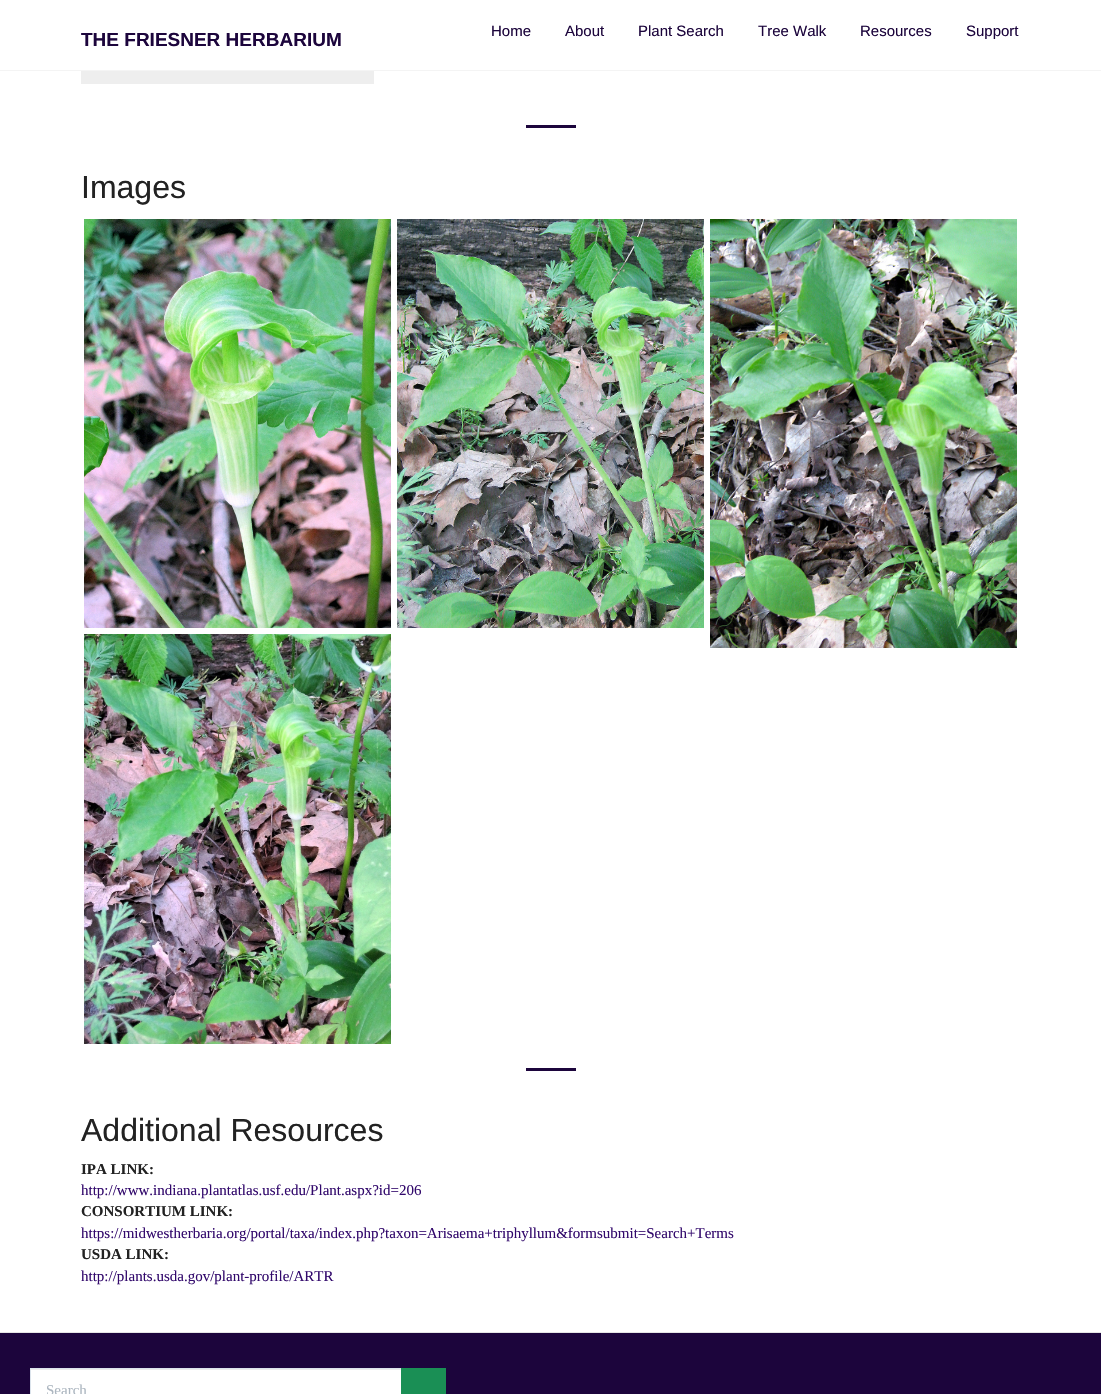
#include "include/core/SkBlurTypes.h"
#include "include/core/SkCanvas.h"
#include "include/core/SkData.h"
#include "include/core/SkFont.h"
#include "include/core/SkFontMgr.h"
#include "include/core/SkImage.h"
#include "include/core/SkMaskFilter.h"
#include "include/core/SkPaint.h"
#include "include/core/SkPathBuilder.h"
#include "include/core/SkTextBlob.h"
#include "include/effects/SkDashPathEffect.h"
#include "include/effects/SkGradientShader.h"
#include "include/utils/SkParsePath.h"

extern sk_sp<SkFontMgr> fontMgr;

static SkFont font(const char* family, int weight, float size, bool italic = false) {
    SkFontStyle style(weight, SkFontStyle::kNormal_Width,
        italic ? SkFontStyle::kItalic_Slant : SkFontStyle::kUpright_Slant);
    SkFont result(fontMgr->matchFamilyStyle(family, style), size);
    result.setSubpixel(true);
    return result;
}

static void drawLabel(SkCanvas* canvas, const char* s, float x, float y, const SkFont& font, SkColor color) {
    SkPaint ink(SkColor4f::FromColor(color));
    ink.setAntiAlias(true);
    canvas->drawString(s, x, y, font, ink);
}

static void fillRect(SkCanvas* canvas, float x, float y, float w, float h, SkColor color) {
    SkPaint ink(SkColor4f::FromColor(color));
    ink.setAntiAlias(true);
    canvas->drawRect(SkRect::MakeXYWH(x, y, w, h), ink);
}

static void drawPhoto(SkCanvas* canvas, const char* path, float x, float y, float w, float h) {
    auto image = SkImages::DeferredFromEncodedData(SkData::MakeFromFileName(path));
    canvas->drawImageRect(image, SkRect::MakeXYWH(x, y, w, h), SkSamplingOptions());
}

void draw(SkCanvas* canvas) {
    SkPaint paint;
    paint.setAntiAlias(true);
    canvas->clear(0xFFFFFFFF);
    fillRect(canvas, 0, 70, 1101, 1, 0xFFF4F4F4);
    SkFont font1 = font("Liberation Sans", 700, 19);
    drawLabel(canvas, "THE FRIESNER HERBARIUM", 81, 46, font1, 0xFF1C053C);
    SkFont font2 = font("Liberation Sans", 400, 15);
    drawLabel(canvas, "Home", 491, 36, font2, 0xFF1C053C);
    drawLabel(canvas, "About", 565, 36, font2, 0xFF1C053C);
    drawLabel(canvas, "Plant Search", 638, 36, font2, 0xFF1C053C);
    drawLabel(canvas, "Tree Walk", 758, 36, font2, 0xFF1C053C);
    drawLabel(canvas, "Resources", 860, 36, font2, 0xFF1C053C);
    drawLabel(canvas, "Support", 966, 36, font2, 0xFF1C053C);
    fillRect(canvas, 81, 71, 293, 13, 0xFFEEEEEE);
    fillRect(canvas, 526, 125, 50, 3, 0xFF1C053C);
    SkFont font3 = font("Liberation Sans", 400, 32);
    drawLabel(canvas, "Images", 81, 198, font3, 0xFF222222);
    drawPhoto(canvas, "assets/img1.png", 84, 219, 307, 409);
    drawPhoto(canvas, "assets/img2.png", 84, 634, 307, 410);
    drawPhoto(canvas, "assets/img3.png", 397, 219, 307, 409);
    drawPhoto(canvas, "assets/img4.png", 710, 219, 307, 429);
    fillRect(canvas, 526, 1068, 50, 3, 0xFF1C053C);
    drawLabel(canvas, "Additional Resources", 81, 1141, font3, 0xFF222222);
    SkFont font4 = font("Liberation Serif", 700, 15);
    drawLabel(canvas, "IPA LINK:", 81, 1174, font4, 0xFF222222);
    SkFont font5 = font("Liberation Serif", 400, 15);
    drawLabel(canvas, "http://www.indiana.plantatlas.usf.edu/Plant.aspx?id=206", 81, 1195, font5, 0xFF32096C);
    drawLabel(canvas, "CONSORTIUM LINK:", 81, 1216, font4, 0xFF222222);
    drawLabel(canvas, "https://midwestherbaria.org/portal/taxa/index.php?taxon=Arisaema+triphyllum&formsubmit=Search+Terms", 81, 1238, font5, 0xFF32096C);
    drawLabel(canvas, "USDA LINK:", 81, 1259, font4, 0xFF222222);
    drawLabel(canvas, "http://plants.usda.gov/plant-profile/ARTR", 81, 1281, font5, 0xFF32096C);
    fillRect(canvas, 0, 1333, 1101, 61, 0xFF1C053C);
    fillRect(canvas, 0, 1332, 1101, 1, 0xFFE5E5E5);
    fillRect(canvas, 31, 1370, 370, 24, 0xFFFFFFFF);
    fillRect(canvas, 31, 1369, 370, 1, 0xFFECECEC);
    paint.setStroke(true);
    paint.setStrokeWidth(1);
    paint.setColor(0xFFDCE4EC);
    canvas->drawRect(SkRect::MakeXYWH(30.5f, 1368.5f, 371, 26), paint);
    drawLabel(canvas, "Search", 46, 1395, font5, 0xFFACB6C0);
    fillRect(canvas, 401, 1368, 45, 26, 0xFF1A8F55);
}
